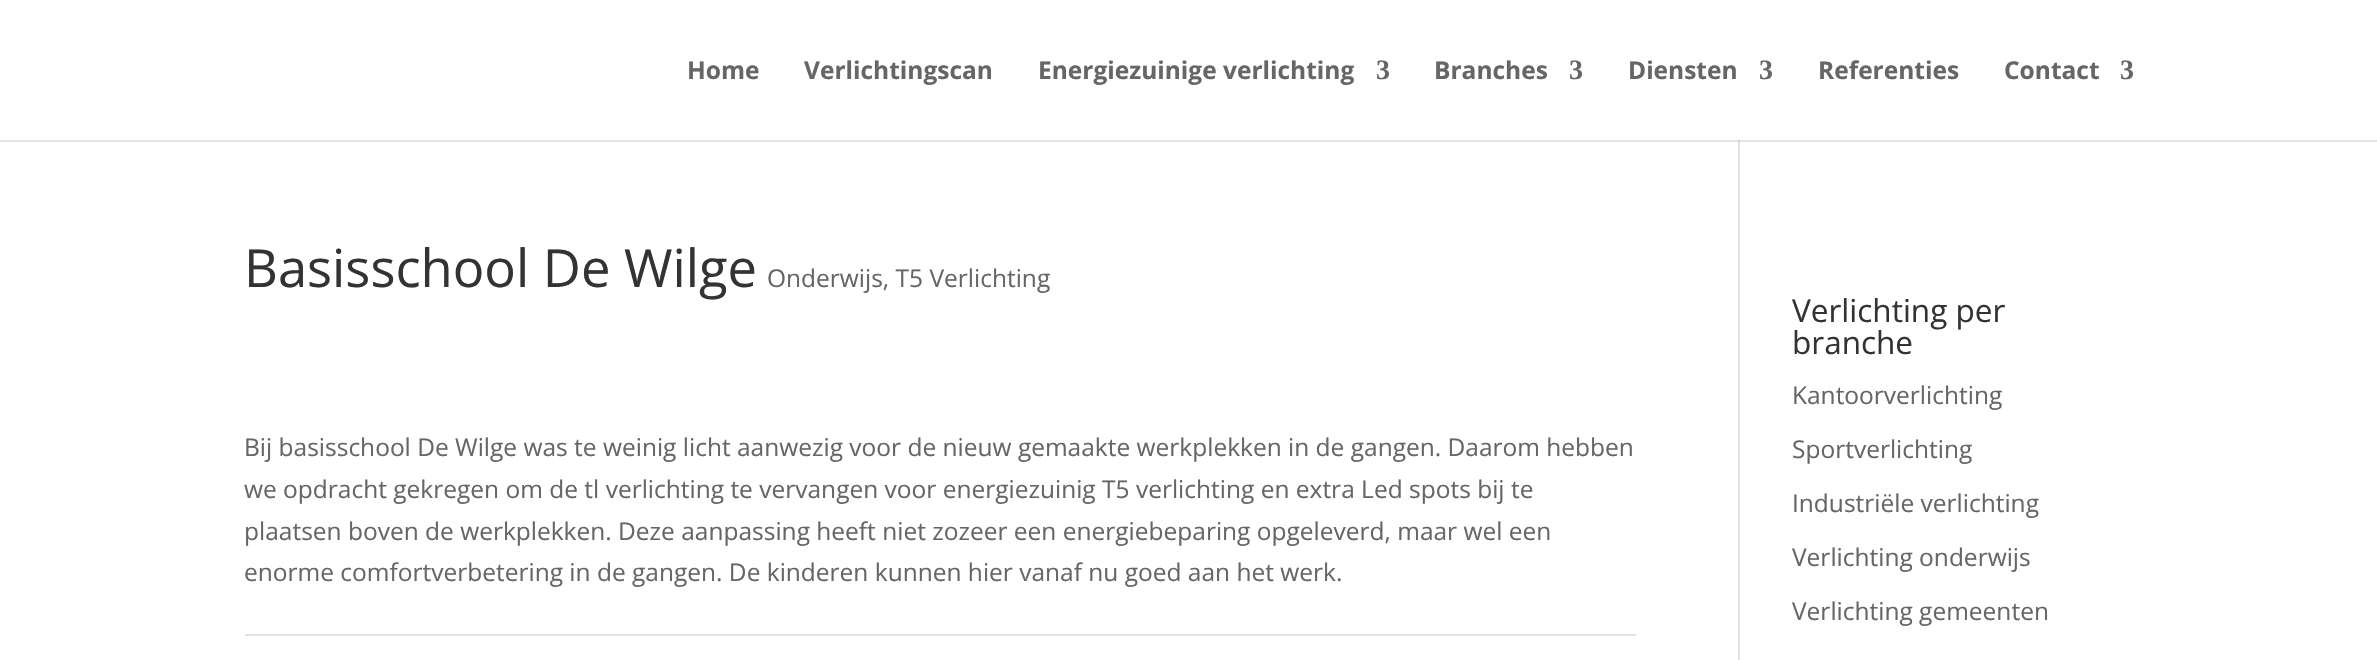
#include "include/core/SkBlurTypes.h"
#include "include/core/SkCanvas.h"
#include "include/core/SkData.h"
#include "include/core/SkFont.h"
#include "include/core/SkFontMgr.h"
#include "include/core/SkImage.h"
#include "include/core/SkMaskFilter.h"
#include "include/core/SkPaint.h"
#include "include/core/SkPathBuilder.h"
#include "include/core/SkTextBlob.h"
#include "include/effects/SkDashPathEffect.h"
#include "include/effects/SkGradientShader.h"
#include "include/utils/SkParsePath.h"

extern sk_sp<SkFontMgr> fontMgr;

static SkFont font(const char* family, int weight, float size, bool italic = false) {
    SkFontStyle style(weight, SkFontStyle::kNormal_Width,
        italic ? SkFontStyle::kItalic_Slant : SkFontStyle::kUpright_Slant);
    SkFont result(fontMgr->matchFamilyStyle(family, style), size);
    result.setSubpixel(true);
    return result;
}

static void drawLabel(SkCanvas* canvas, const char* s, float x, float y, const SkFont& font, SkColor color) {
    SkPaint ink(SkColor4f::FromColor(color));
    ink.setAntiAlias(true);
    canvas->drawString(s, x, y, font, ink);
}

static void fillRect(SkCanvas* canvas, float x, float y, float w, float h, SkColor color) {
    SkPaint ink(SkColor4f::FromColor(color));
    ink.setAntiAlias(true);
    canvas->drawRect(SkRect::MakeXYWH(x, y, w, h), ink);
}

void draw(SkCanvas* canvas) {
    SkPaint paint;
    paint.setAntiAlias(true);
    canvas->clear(0xFFFFFFFF);
    fillRect(canvas, 0, 140, 2377, 2, 0xFFE6E6E6);
    SkFont font1 = font("Open Sans", 700, 24.5f);
    drawLabel(canvas, "Home", 687, 79, font1, 0xFF666666);
    drawLabel(canvas, "Verlichtingscan", 804, 79, font1, 0xFF666666);
    drawLabel(canvas, "Energiezuinige verlichting", 1038, 79, font1, 0xFF666666);
    SkFont font2 = font("Liberation Serif", 700, 28);
    drawLabel(canvas, "3", 1376, 79, font2, 0xFF666666);
    drawLabel(canvas, "Branches", 1434, 79, font1, 0xFF666666);
    drawLabel(canvas, "3", 1569, 79, font2, 0xFF666666);
    drawLabel(canvas, "Diensten", 1628, 79, font1, 0xFF666666);
    drawLabel(canvas, "3", 1759, 79, font2, 0xFF666666);
    drawLabel(canvas, "Referenties", 1818, 79, font1, 0xFF666666);
    drawLabel(canvas, "Contact", 2004, 79, font1, 0xFF666666);
    drawLabel(canvas, "3", 2120, 79, font2, 0xFF666666);
    fillRect(canvas, 1738, 140, 2, 520, 0xFFE2E2E2);
    fillRect(canvas, 1738, 140, 2, 2, 0xFFCBCBCB);
    SkFont font3 = font("Open Sans", 400, 52.5f);
    drawLabel(canvas, "Basisschool De Wilge", 244, 287, font3, 0xFF333333);
    SkFont font4 = font("Open Sans", 400, 24.5f);
    drawLabel(canvas, "Onderwijs, T5 Verlichting", 767, 287, font4, 0xFF666666);
    drawLabel(canvas, "Bij basisschool De Wilge was te weinig licht aanwezig voor de nieuw gemaakte werkplekken in de gangen. Daarom hebben", 244, 456, font4, 0xFF666666);
    drawLabel(canvas, "we opdracht gekregen om de tl verlichting te vervangen voor energiezuinig T5 verlichting en extra Led spots bij te", 244, 498, font4, 0xFF666666);
    drawLabel(canvas, "plaatsen boven de werkplekken. Deze aanpassing heeft niet zozeer een energiebeparing opgeleverd, maar wel een", 244, 540, font4, 0xFF666666);
    drawLabel(canvas, "enorme comfortverbetering in de gangen. De kinderen kunnen hier vanaf nu goed aan het werk.", 244, 581, font4, 0xFF666666);
    fillRect(canvas, 245, 634, 1391, 2, 0xFFE2E2E2);
    SkFont font5 = font("Open Sans", 400, 31.5f);
    drawLabel(canvas, "Verlichting per", 1792, 322, font5, 0xFF333333);
    drawLabel(canvas, "branche", 1792, 354, font5, 0xFF333333);
    drawLabel(canvas, "Kantoorverlichting", 1792, 404, font4, 0xFF666666);
    drawLabel(canvas, "Sportverlichting", 1792, 458, font4, 0xFF666666);
    drawLabel(canvas, "Industriële verlichting", 1792, 512, font4, 0xFF666666);
    drawLabel(canvas, "Verlichting onderwijs", 1792, 566, font4, 0xFF666666);
    drawLabel(canvas, "Verlichting gemeenten", 1792, 620, font4, 0xFF666666);
}
